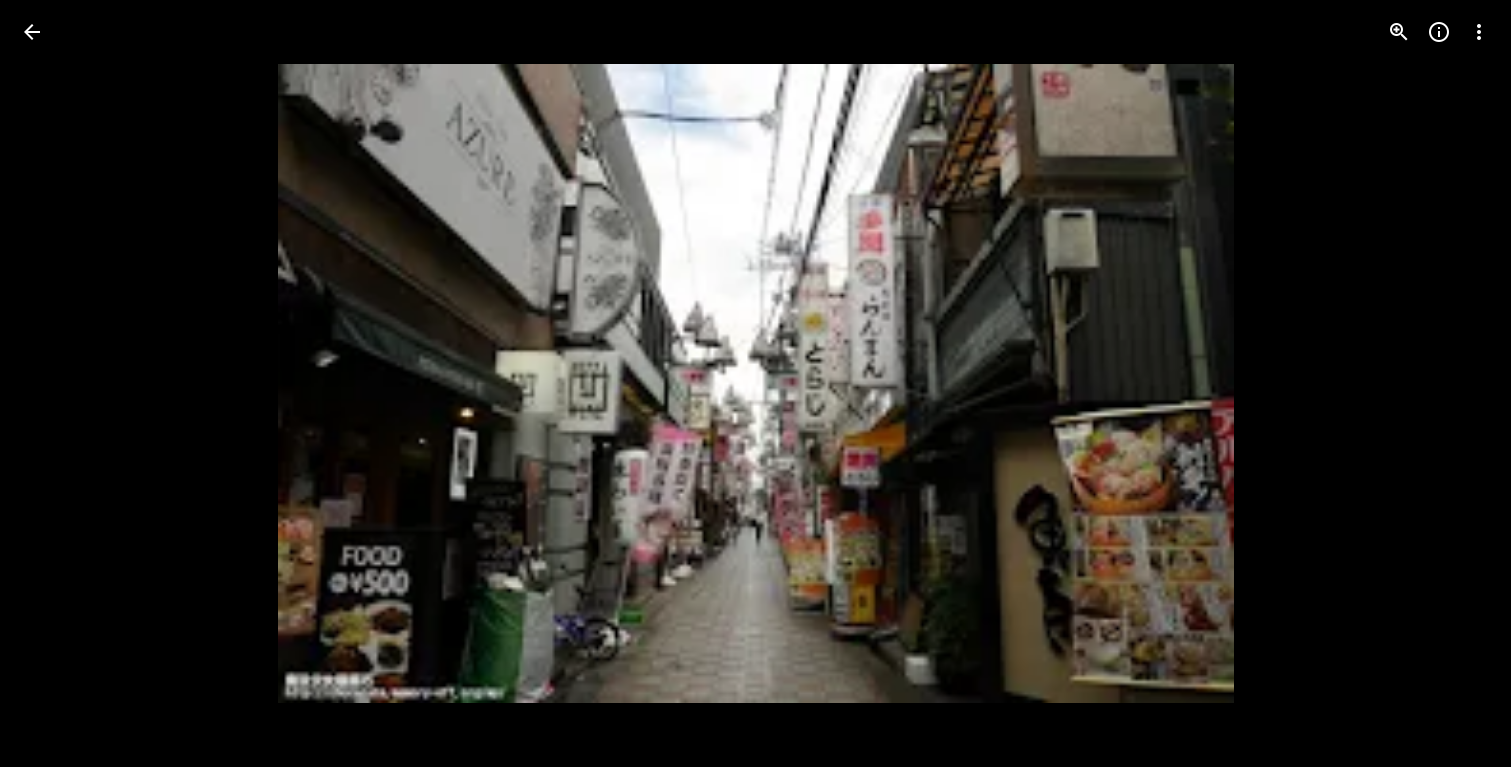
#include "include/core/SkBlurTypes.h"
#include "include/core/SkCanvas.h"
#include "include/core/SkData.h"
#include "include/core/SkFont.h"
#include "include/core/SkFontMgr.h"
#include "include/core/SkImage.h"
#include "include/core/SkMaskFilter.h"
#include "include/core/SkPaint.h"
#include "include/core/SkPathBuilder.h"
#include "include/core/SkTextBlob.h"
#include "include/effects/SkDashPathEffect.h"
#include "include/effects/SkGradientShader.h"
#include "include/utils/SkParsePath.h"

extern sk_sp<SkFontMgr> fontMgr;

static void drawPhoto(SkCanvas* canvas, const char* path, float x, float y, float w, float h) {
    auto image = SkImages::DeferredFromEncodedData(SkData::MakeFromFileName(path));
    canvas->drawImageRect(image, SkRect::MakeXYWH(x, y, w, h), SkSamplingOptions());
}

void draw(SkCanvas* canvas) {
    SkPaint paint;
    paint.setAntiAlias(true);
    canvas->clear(0xFF000000);
    drawPhoto(canvas, "assets/img1.png", 24, 24, 16, 16);
    drawPhoto(canvas, "assets/img2.png", 1390, 23, 18, 18);
    drawPhoto(canvas, "assets/img3.png", 1429, 22, 20, 20);
    drawPhoto(canvas, "assets/img4.png", 1477, 24, 4, 16);
    drawPhoto(canvas, "assets/img5.png", 278, 64, 956, 639);
}
